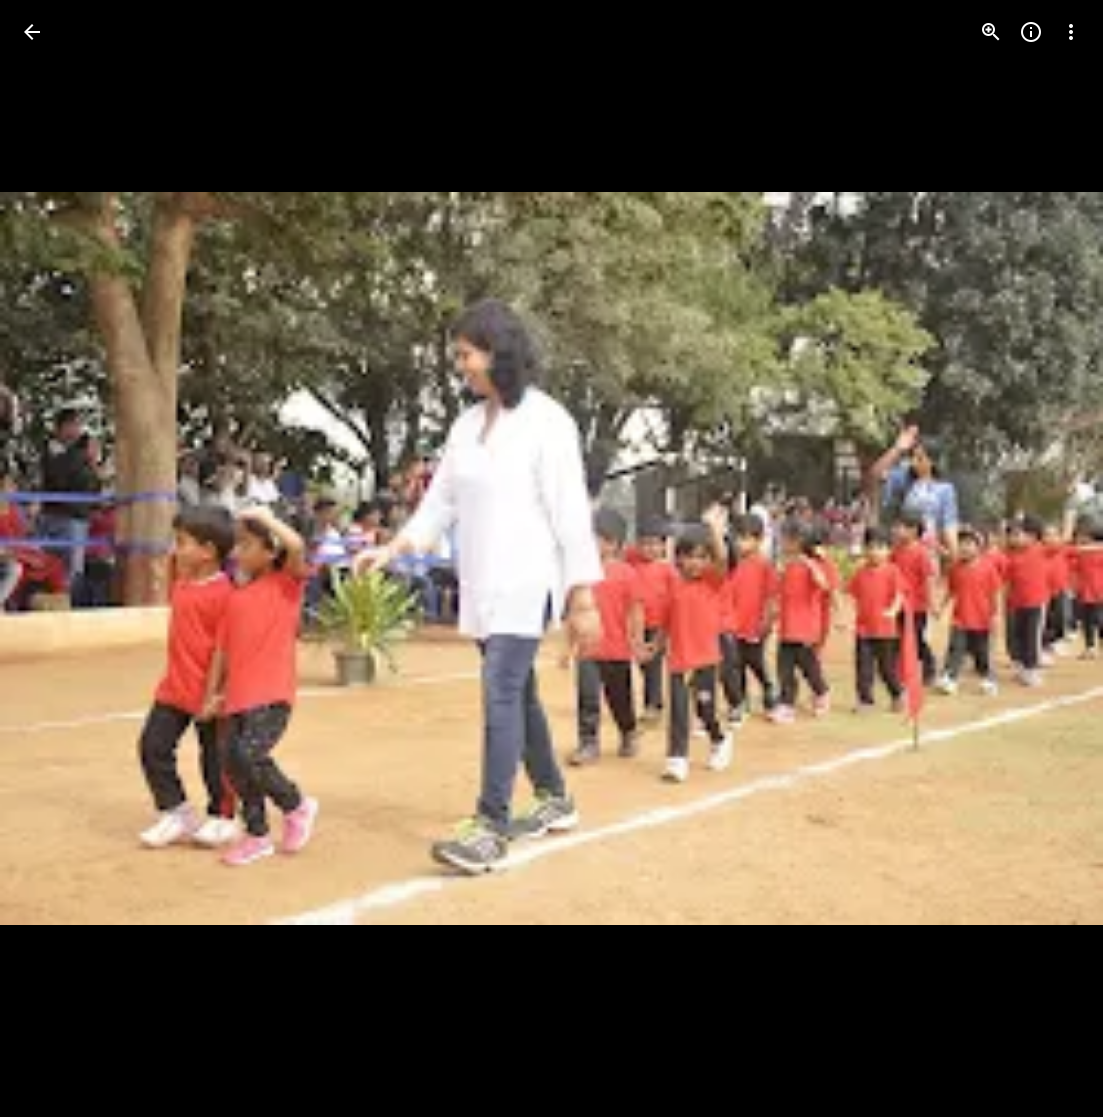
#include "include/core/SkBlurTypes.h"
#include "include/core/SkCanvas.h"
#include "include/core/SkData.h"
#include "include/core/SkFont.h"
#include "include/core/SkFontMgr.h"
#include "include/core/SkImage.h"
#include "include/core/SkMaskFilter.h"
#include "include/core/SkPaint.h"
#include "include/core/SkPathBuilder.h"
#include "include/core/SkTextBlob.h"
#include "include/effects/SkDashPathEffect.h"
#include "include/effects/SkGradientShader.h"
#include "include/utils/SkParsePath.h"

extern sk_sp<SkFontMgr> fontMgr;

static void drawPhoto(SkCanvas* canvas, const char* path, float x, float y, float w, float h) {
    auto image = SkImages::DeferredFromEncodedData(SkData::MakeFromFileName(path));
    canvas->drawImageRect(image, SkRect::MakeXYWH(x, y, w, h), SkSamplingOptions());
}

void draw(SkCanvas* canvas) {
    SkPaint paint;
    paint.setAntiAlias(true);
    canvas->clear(0xFF000000);
    drawPhoto(canvas, "assets/img1.png", 24, 24, 16, 16);
    drawPhoto(canvas, "assets/img2.png", 982, 23, 18, 18);
    drawPhoto(canvas, "assets/img3.png", 1021, 22, 20, 20);
    drawPhoto(canvas, "assets/img4.png", 1069, 24, 4, 16);
    drawPhoto(canvas, "assets/img5.png", 0, 192, 1103, 733);
}
